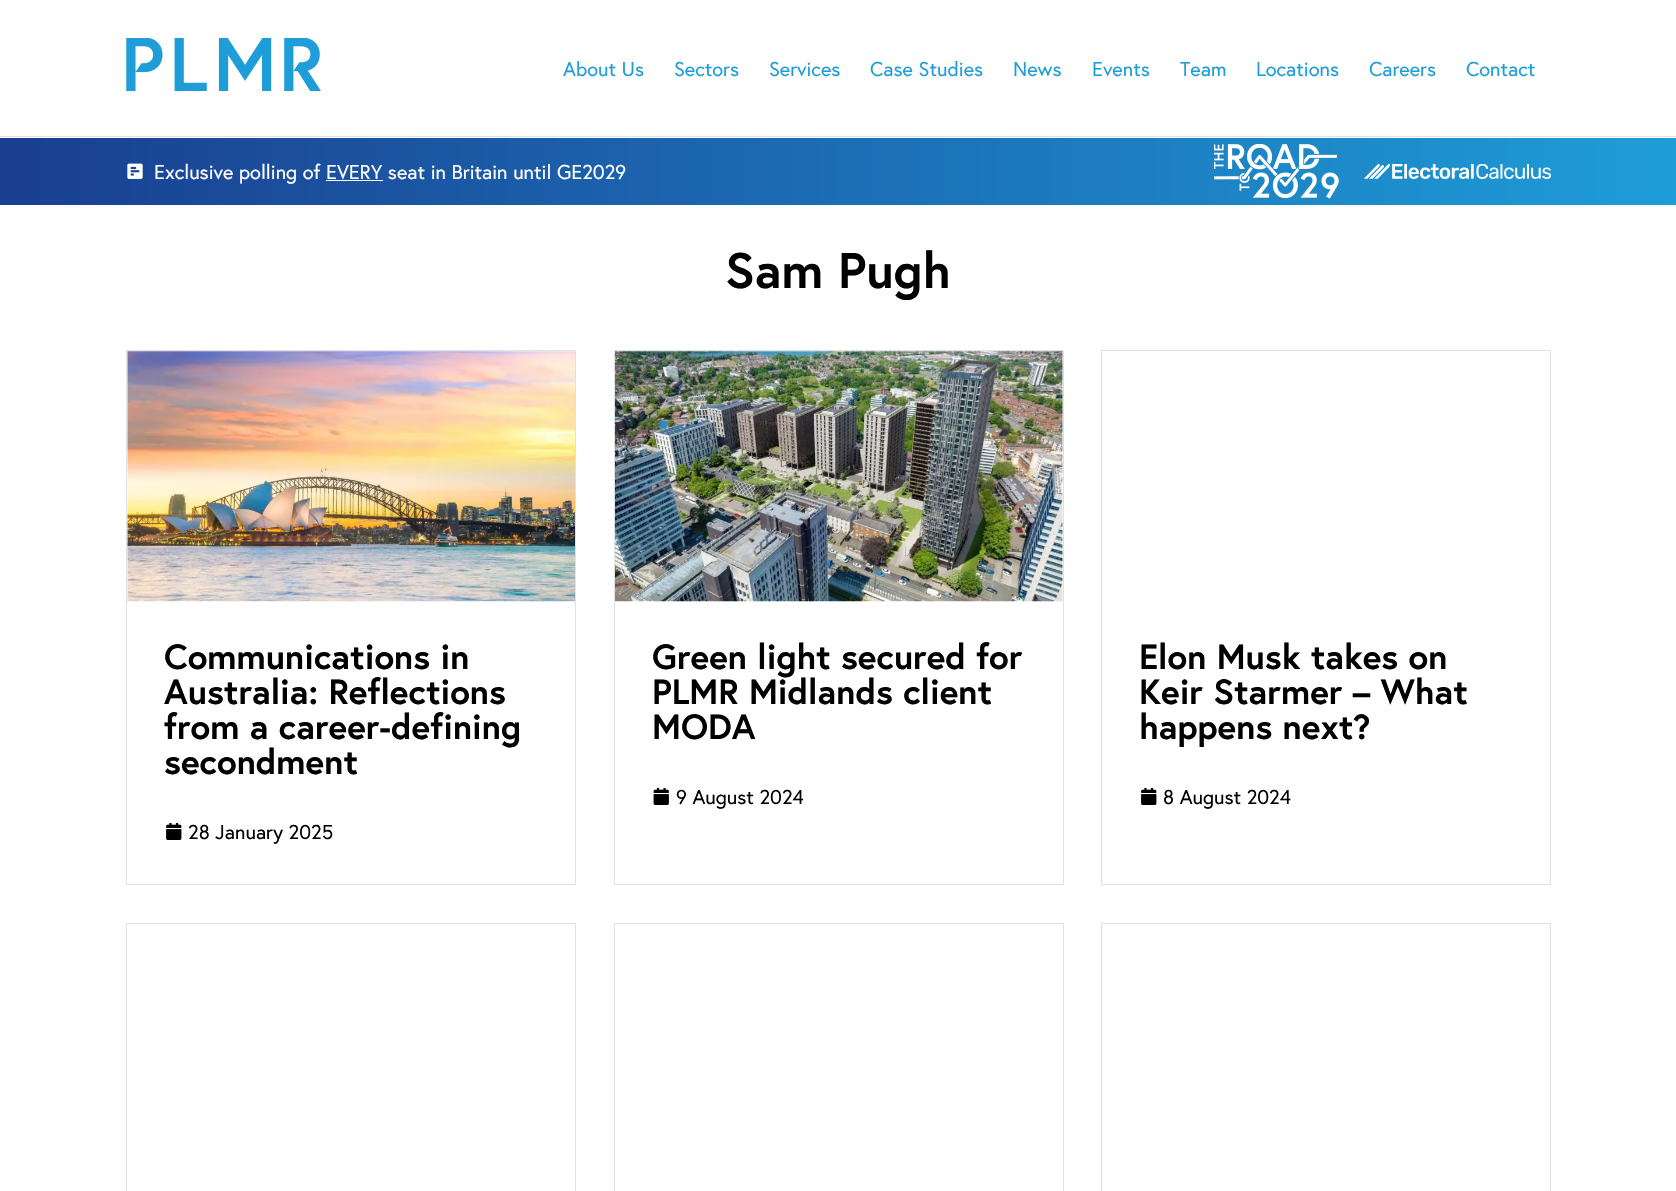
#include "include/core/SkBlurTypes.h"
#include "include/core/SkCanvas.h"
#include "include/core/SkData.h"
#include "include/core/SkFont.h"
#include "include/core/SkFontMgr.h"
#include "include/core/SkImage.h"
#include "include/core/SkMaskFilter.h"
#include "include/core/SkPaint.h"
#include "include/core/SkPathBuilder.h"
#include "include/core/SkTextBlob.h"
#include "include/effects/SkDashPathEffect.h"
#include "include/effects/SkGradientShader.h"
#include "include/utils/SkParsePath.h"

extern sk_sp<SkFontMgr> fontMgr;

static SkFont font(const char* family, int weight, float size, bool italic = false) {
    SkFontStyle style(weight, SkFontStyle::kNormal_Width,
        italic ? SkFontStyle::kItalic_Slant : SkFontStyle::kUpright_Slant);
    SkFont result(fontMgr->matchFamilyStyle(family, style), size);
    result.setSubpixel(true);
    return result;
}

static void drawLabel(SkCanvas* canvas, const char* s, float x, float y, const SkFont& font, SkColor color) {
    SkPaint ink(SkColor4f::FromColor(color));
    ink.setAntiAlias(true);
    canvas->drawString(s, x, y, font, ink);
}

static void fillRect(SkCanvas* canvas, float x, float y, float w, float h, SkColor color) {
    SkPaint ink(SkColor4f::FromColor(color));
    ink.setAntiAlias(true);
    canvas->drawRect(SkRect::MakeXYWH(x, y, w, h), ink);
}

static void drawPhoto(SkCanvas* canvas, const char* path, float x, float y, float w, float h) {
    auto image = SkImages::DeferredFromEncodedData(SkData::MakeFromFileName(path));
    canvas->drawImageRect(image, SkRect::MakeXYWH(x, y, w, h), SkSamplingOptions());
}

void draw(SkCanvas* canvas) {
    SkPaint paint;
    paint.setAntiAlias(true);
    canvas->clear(0xFFFFFFFF);
    fillRect(canvas, 0, 136, 1676, 1, 0xFFE1E1E1);
    drawPhoto(canvas, "assets/img1.png", 126, 38, 195, 53);
    SkFont font1 = font("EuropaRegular", 400, 20);
    drawLabel(canvas, "About Us", 563, 76, font1, 0xFF1E9DD8);
    drawLabel(canvas, "Sectors", 674, 76, font1, 0xFF1E9DD8);
    drawLabel(canvas, "Services", 769, 76, font1, 0xFF1E9DD8);
    drawLabel(canvas, "Case Studies", 870, 76, font1, 0xFF1E9DD8);
    drawLabel(canvas, "News", 1013, 76, font1, 0xFF1E9DD8);
    drawLabel(canvas, "Events", 1092, 76, font1, 0xFF1E9DD8);
    drawLabel(canvas, "Team", 1180, 76, font1, 0xFF1E9DD8);
    drawLabel(canvas, "Locations", 1256, 76, font1, 0xFF1E9DD8);
    drawLabel(canvas, "Careers", 1369, 76, font1, 0xFF1E9DD8);
    drawLabel(canvas, "Contact", 1466, 76, font1, 0xFF1E9DD8);
    {
        const SkColor colors[] = {0xFF1A3E91, 0xFF1E9DD8};
        const float stops[] = {0, 1};
        const SkPoint ends[] = {{0, 171}, {1676, 171}};
        paint.setShader(SkGradientShader::MakeLinear(ends, colors, stops, 2, SkTileMode::kClamp));
        paint.setAlpha(255);
    }
    canvas->drawRect(SkRect::MakeXYWH(0, 138, 1676, 67), paint);
    drawPhoto(canvas, "assets/img2.png", 127, 163, 16, 16);
    drawLabel(canvas, "Exclusive polling of EVERY seat in Britain until GE2029", 154, 179, font1, 0xFFFFFFFF);
    fillRect(canvas, 326, 180, 57, 1, 0xFFFFFFFF);
    drawPhoto(canvas, "assets/img3.png", 1214, 144, 125, 55);
    drawPhoto(canvas, "assets/img4.png", 1364, 164, 187, 15);
    SkFont font2 = font("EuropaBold", 700, 50);
    drawLabel(canvas, "Sam Pugh", 725, 288, font2, 0xFF000000);
    paint.setStroke(true);
    paint.setStrokeWidth(1);
    paint.setShader(nullptr);
    paint.setColor(0xFFE1E1E1);
    canvas->drawRect(SkRect::MakeXYWH(126.5f, 350.5f, 449, 534), paint);
    drawPhoto(canvas, "assets/img5.png", 127, 351, 448, 251);
    SkFont font3 = font("EuropaBold", 700, 35);
    drawLabel(canvas, "Communications in", 164, 669, font3, 0xFF000000);
    drawLabel(canvas, "Australia: Reflections", 164, 704, font3, 0xFF000000);
    drawLabel(canvas, "from a career-defining", 164, 739, font3, 0xFF000000);
    drawLabel(canvas, "secondment", 164, 774, font3, 0xFF000000);
    drawPhoto(canvas, "assets/img6.png", 166, 823, 16, 17);
    drawLabel(canvas, "28 January 2025", 188, 839, font1, 0xFF000000);
    canvas->drawRect(SkRect::MakeXYWH(614.5f, 350.5f, 449, 534), paint);
    drawPhoto(canvas, "assets/img7.png", 615, 351, 448, 251);
    drawLabel(canvas, "Green light secured for", 652, 669, font3, 0xFF000000);
    drawLabel(canvas, "PLMR Midlands client", 652, 704, font3, 0xFF000000);
    drawLabel(canvas, "MODA", 652, 739, font3, 0xFF000000);
    drawPhoto(canvas, "assets/img8.png", 653, 788, 16, 17);
    drawLabel(canvas, "9 August 2024", 676, 804, font1, 0xFF000000);
    canvas->drawRect(SkRect::MakeXYWH(1101.5f, 350.5f, 449, 534), paint);
    drawLabel(canvas, "Elon Musk takes on", 1139, 669, font3, 0xFF000000);
    drawLabel(canvas, "Keir Starmer – What", 1139, 704, font3, 0xFF000000);
    drawLabel(canvas, "happens next?", 1139, 739, font3, 0xFF000000);
    drawPhoto(canvas, "assets/img6.png", 1141, 788, 16, 17);
    drawLabel(canvas, "8 August 2024", 1163, 804, font1, 0xFF000000);
    canvas->drawRect(SkRect::MakeXYWH(126.5f, 923.5f, 449, 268), paint);
    canvas->drawRect(SkRect::MakeXYWH(614.5f, 923.5f, 449, 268), paint);
    canvas->drawRect(SkRect::MakeXYWH(1101.5f, 923.5f, 449, 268), paint);
}
